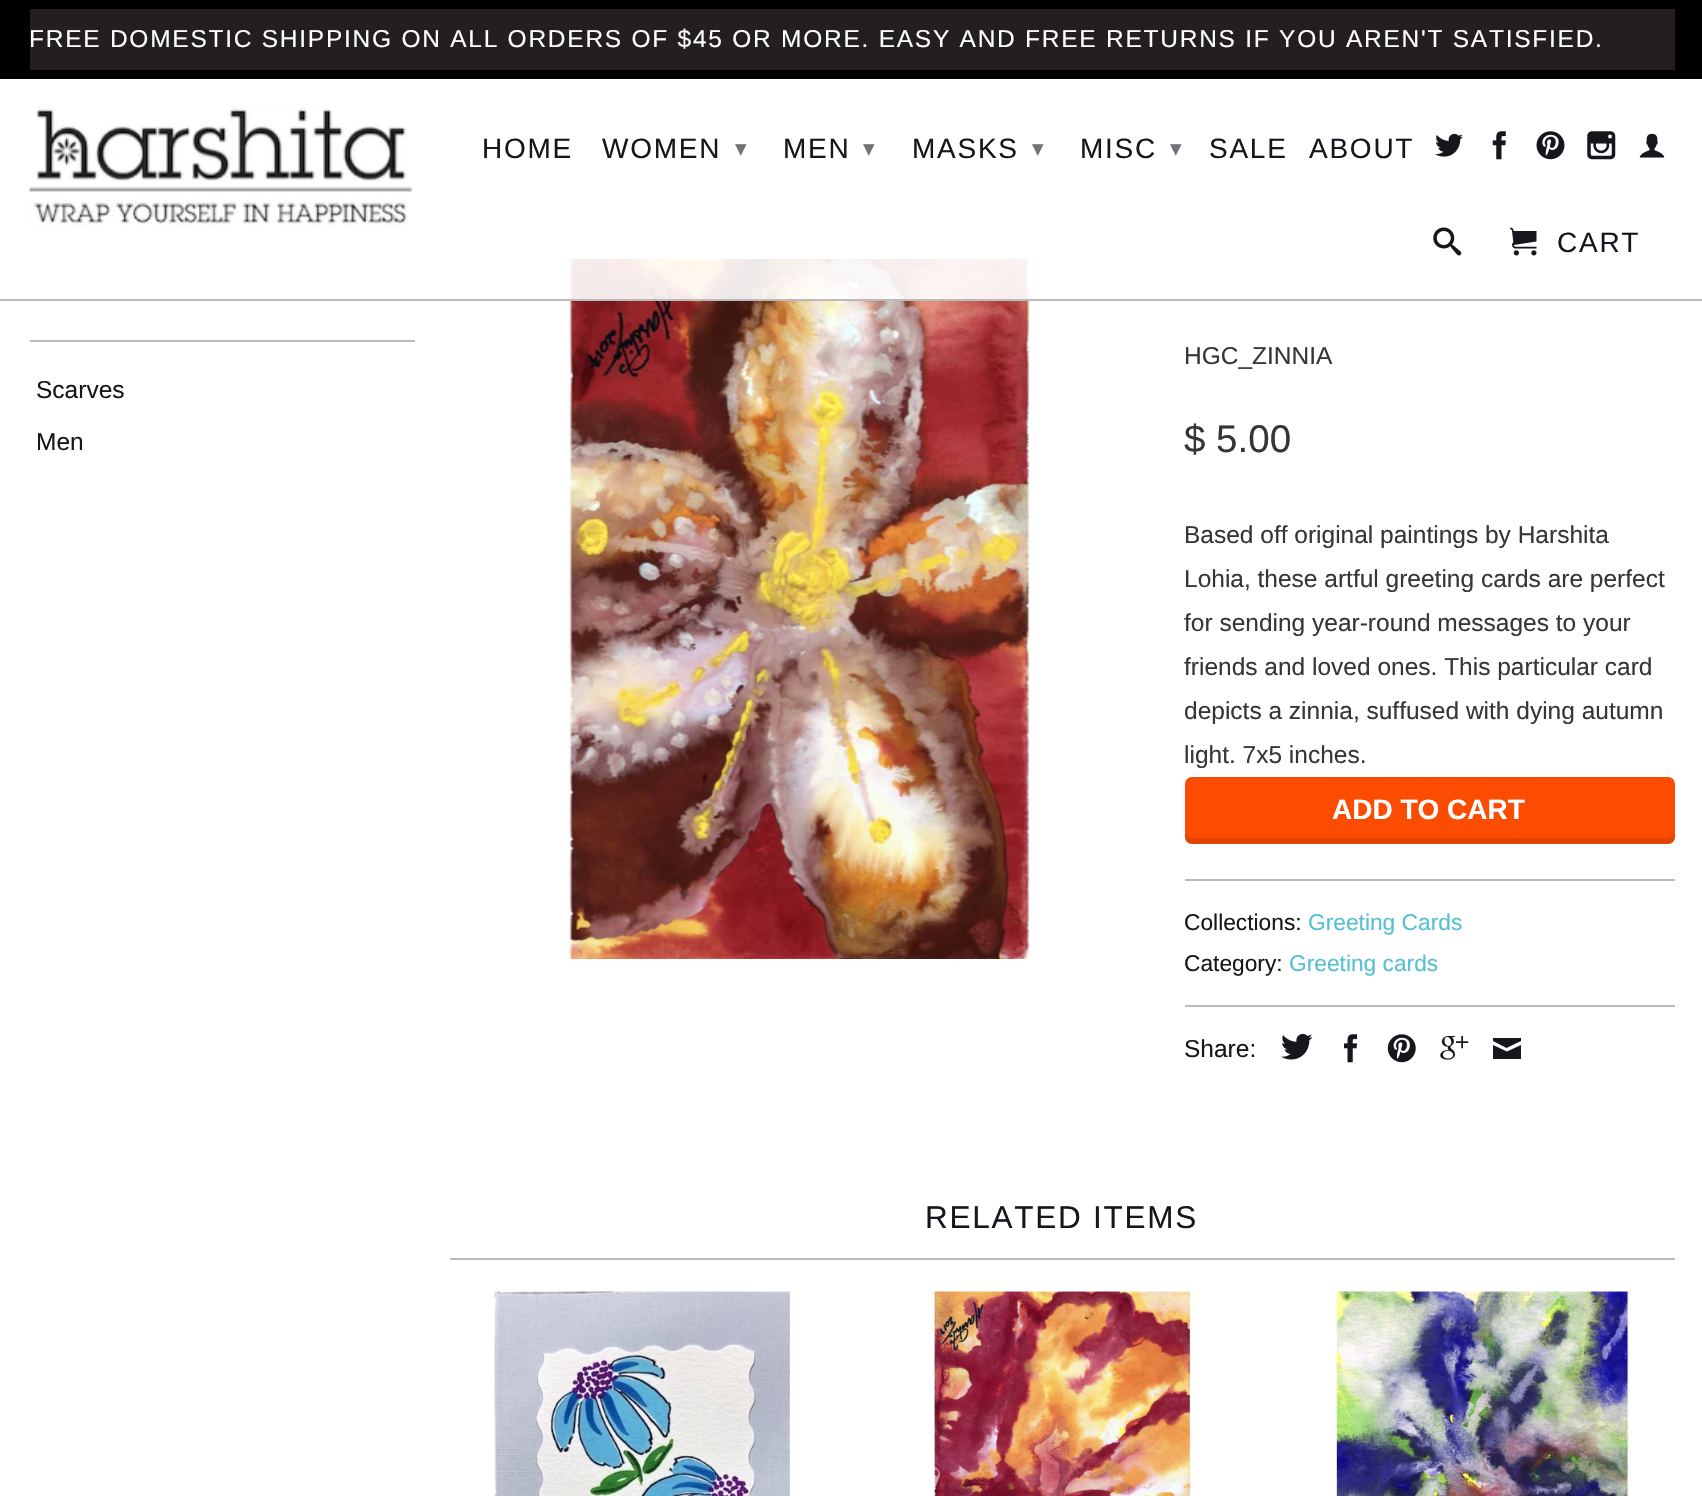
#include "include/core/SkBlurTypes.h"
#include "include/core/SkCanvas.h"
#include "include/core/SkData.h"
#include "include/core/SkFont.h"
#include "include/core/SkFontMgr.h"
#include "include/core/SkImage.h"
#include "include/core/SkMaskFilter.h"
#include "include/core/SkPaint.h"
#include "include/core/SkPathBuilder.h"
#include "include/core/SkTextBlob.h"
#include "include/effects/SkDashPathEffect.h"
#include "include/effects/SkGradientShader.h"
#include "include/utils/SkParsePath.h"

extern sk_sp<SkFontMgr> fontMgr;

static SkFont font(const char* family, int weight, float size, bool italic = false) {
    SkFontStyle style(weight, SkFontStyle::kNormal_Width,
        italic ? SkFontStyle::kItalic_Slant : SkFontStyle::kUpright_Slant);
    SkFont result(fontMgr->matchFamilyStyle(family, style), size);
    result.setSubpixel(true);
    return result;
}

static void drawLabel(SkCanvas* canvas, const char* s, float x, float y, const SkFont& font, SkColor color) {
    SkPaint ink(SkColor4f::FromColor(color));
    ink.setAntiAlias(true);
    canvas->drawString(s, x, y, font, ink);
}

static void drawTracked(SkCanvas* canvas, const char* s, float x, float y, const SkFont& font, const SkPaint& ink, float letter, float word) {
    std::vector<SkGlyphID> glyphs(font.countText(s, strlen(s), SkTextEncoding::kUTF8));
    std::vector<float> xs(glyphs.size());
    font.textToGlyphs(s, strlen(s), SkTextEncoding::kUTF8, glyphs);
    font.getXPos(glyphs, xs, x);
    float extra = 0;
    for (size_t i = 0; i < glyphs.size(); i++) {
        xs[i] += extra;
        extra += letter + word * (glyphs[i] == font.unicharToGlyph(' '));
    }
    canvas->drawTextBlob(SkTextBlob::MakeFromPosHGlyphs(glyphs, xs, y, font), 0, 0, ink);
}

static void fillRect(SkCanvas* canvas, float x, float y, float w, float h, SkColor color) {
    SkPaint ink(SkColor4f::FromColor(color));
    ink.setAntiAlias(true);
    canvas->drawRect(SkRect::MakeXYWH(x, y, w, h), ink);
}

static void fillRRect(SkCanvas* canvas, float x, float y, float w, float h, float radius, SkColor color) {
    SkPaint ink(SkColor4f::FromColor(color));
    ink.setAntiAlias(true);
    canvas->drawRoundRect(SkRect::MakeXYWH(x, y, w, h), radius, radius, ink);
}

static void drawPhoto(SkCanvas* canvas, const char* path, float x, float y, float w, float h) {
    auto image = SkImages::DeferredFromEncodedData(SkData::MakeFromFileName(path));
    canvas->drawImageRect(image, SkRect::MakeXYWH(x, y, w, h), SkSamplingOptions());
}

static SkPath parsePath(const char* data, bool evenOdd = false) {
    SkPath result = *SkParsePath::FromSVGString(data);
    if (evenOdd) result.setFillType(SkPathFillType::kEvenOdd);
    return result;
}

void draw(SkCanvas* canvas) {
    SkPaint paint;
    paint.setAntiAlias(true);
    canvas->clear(0xFFFFFFFF);
    drawPhoto(canvas, "assets/img9.png", 568, 259, 462, 700);
    fillRect(canvas, 568, 259, 462, 40, 0xE6FFFFFF);
    fillRect(canvas, 0, 299, 1702, 2, 0xFFBBBBBB);
    fillRect(canvas, 0, 0, 1702, 79, 0xFF000000);
    fillRect(canvas, 30, 9, 1645, 61, 0xFF231F20);
    SkFont font1 = font("Liberation Sans", 400, 24.5f);
    paint.setColor(0xFFFFFFFF);
    drawTracked(canvas, "FREE DOMESTIC SHIPPING ON ALL ORDERS OF $45 OR MORE. EASY AND FREE RETURNS IF YOU AREN'T SATISFIED.", 29, 47, font1, paint, 1.75f, 0);
    drawPhoto(canvas, "assets/img1.png", 29, 105, 384, 122);
    SkFont font2 = font("Liberation Sans", 400, 28);
    paint.setColor(0xFF16161D);
    drawTracked(canvas, "HOME", 482, 158, font2, paint, 1.75f, 0);
    drawTracked(canvas, "WOMEN", 602, 158, font2, paint, 1.75f, 0);
    SkFont font3 = font("DejaVu Sans", 400, 23);
    paint.setColor(0xFF737377);
    drawTracked(canvas, "▾", 735, 156, font3, paint, 1.75f, 0);
    paint.setColor(0xFF16161D);
    drawTracked(canvas, "MEN", 783, 158, font2, paint, 1.75f, 0);
    paint.setColor(0xFF737377);
    drawTracked(canvas, "▾", 863, 156, font3, paint, 1.75f, 0);
    paint.setColor(0xFF16161D);
    drawTracked(canvas, "MASKS", 912, 158, font2, paint, 1.75f, 0);
    paint.setColor(0xFF737377);
    drawTracked(canvas, "▾", 1032, 156, font3, paint, 1.75f, 0);
    paint.setColor(0xFF16161D);
    drawTracked(canvas, "MISC", 1080, 158, font2, paint, 1.75f, 0);
    paint.setColor(0xFF737377);
    drawTracked(canvas, "▾", 1170, 156, font3, paint, 1.75f, 0);
    paint.setColor(0xFF16161D);
    drawTracked(canvas, "SALE", 1209, 158, font2, paint, 1.75f, 0);
    drawTracked(canvas, "ABOUT", 1309, 158, font2, paint, 1.75f, 0);
    drawPhoto(canvas, "assets/img2.png", 1435, 133, 28, 24);
    drawPhoto(canvas, "assets/img3.png", 1492, 131, 14, 29);
    drawPhoto(canvas, "assets/img4.png", 1536, 131, 29, 29);
    drawPhoto(canvas, "assets/img5.png", 1587, 131, 29, 29);
    drawPhoto(canvas, "assets/img6.png", 1639, 133, 26, 25);
    drawPhoto(canvas, "assets/img7.png", 1433, 227, 29, 29);
    drawPhoto(canvas, "assets/img8.png", 1510, 227, 27, 29);
    drawTracked(canvas, "CART", 1557, 252, font2, paint, 1.75f, 0);
    fillRect(canvas, 30, 340, 385, 2, 0xFFBBBBBB);
    drawLabel(canvas, "Scarves", 36, 398, font1, 0xFF16161D);
    drawLabel(canvas, "Men", 36, 450, font1, 0xFF16161D);
    drawLabel(canvas, "HGC_ZINNIA", 1184, 364, font1, 0xFF363636);
    SkFont font4 = font("Liberation Sans", 400, 38.5f);
    drawLabel(canvas, "$ 5.00", 1184, 452, font4, 0xFF363636);
    drawLabel(canvas, "Based off original paintings by Harshita", 1184, 543, font1, 0xFF363636);
    drawLabel(canvas, "Lohia, these artful greeting cards are perfect", 1184, 587, font1, 0xFF363636);
    drawLabel(canvas, "for sending year-round messages to your", 1184, 631, font1, 0xFF363636);
    drawLabel(canvas, "friends and loved ones. This particular card", 1184, 675, font1, 0xFF363636);
    drawLabel(canvas, "depicts a zinnia, suffused with dying autumn", 1184, 719, font1, 0xFF363636);
    drawLabel(canvas, "light. 7x5 inches.", 1184, 763, font1, 0xFF363636);
    fillRRect(canvas, 1185, 777, 490, 67, 7, 0xFFFC4C02);
    paint.setColor(0x1A000000);
    canvas->drawPath(parsePath("M1185 831V837C1185 841 1188 844 1192 844H1668C1672 844 1675 841 1675 837V831C1675 835 1672 838 1668 838H1192C1188 838 1185 835 1185 831Z"), paint);
    SkFont font5 = font("Liberation Sans", 700, 28);
    drawLabel(canvas, "ADD TO CART", 1332, 819, font5, 0xFFFFFFFF);
    fillRect(canvas, 1185, 879, 490, 2, 0xFFBBBBBB);
    SkFont font6 = font("Liberation Sans", 400, 22.75f);
    drawLabel(canvas, "Collections:", 1184, 930, font6, 0xFF16161D);
    drawLabel(canvas, "Greeting Cards", 1308, 930, font6, 0xFF55C0D4);
    drawLabel(canvas, "Category:", 1184, 971, font6, 0xFF16161D);
    drawLabel(canvas, "Greeting cards", 1289, 971, font6, 0xFF55C0D4);
    fillRect(canvas, 1185, 1005, 490, 2, 0xFFBBBBBB);
    drawLabel(canvas, "Share:", 1184, 1057, font1, 0xFF16161D);
    paint.setColor(0xFF16161D);
    canvas->drawPath(parsePath("M1506.5 1048L1493 1041V1038H1521V1041ZM1507 1051.5L1521 1045V1059H1493V1045Z"), paint);
    drawPhoto(canvas, "assets/img10.png", 1281, 1033, 32, 27);
    drawPhoto(canvas, "assets/img11.png", 1344, 1034, 14, 29);
    drawPhoto(canvas, "assets/img12.png", 1387, 1034, 29, 29);
    drawPhoto(canvas, "assets/img13.png", 1440, 1036, 29, 24);
    fillRect(canvas, 450, 1258, 1225, 2, 0xFFBBBBBB);
    SkFont font7 = font("Liberation Sans", 400, 31.5f);
    drawTracked(canvas, "RELATED ITEMS", 925, 1228, font7, paint, 1.75f, 0);
    drawPhoto(canvas, "assets/img14.png", 494, 1291, 299, 205);
    drawPhoto(canvas, "assets/img15.png", 932, 1291, 260, 205);
    drawPhoto(canvas, "assets/img16.png", 1335, 1291, 295, 205);
}
